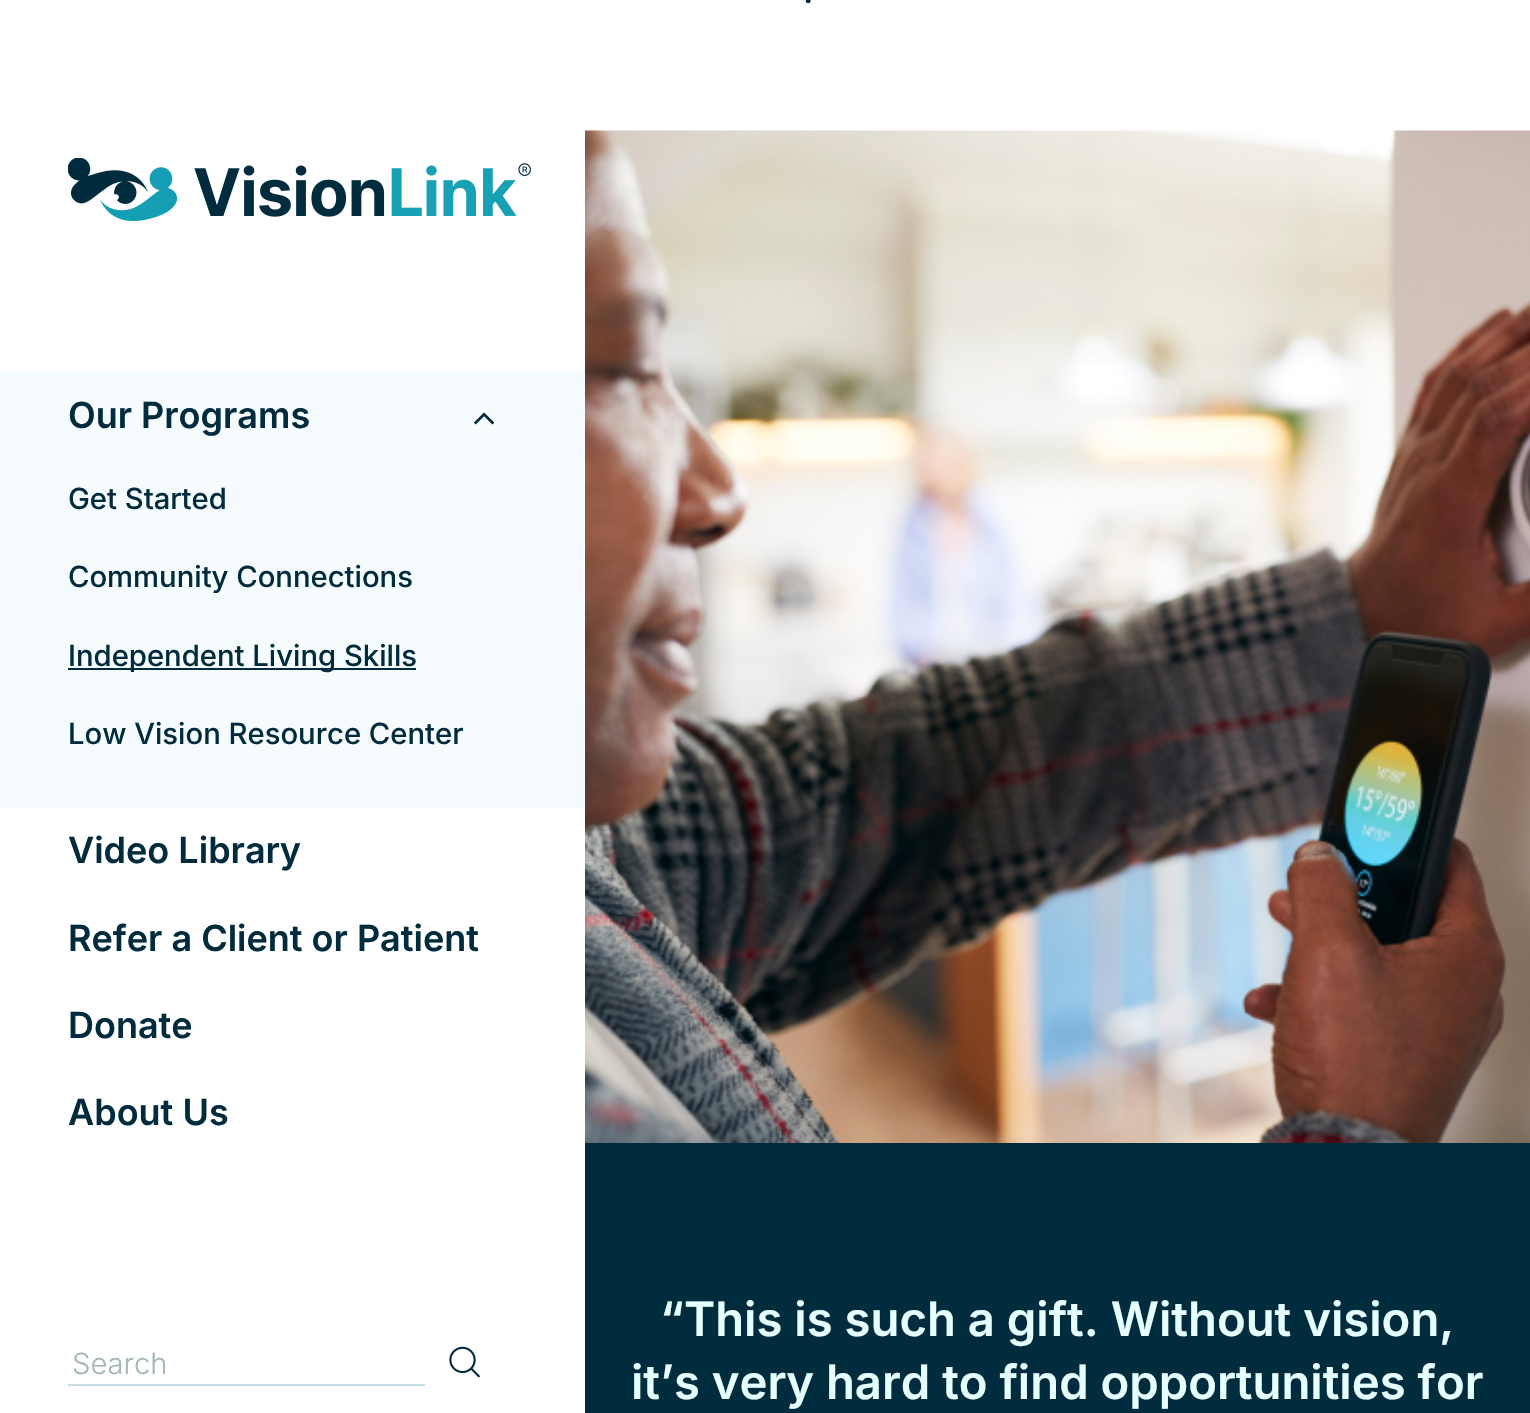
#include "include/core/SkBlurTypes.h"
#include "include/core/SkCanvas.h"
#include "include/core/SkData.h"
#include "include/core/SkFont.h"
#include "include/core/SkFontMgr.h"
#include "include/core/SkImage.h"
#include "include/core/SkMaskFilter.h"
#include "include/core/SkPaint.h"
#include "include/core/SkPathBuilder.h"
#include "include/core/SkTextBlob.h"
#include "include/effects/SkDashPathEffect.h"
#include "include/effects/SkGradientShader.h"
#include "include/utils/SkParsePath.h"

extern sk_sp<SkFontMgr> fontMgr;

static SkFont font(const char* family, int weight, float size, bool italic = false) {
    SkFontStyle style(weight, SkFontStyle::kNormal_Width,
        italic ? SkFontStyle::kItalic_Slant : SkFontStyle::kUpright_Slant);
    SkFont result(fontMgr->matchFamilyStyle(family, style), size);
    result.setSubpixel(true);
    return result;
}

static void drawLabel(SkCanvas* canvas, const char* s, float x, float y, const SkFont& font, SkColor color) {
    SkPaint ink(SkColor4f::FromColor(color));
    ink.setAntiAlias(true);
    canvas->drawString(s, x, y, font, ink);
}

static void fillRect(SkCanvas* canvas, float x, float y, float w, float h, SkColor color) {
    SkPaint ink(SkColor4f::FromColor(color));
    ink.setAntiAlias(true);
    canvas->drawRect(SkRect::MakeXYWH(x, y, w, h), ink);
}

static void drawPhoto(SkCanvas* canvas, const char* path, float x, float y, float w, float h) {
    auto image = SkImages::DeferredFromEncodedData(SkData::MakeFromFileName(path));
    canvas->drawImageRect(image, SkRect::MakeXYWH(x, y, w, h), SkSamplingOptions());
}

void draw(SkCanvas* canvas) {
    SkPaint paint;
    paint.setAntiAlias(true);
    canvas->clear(0xFFFFFFFF);
    drawPhoto(canvas, "assets/img1.png", 68, 158, 463, 63);
    fillRect(canvas, 0, 371, 585, 437, 0xFFF6FCFD);
    SkFont font1 = font("Inter", 600, 36);
    drawLabel(canvas, "Our Programs", 68, 428, font1, 0xFF002C3E);
    drawPhoto(canvas, "assets/img2.png", 474, 412, 21, 13);
    SkFont font2 = font("Inter", 500, 29.25f);
    drawLabel(canvas, "Get Started", 68, 509, font2, 0xFF002C3E);
    drawLabel(canvas, "Community Connections", 68, 587, font2, 0xFF002C3E);
    fillRect(canvas, 68, 668, 348, 2, 0xFF002C3E);
    drawLabel(canvas, "Independent Living Skills", 68, 666, font2, 0xFF002C3E);
    drawLabel(canvas, "Low Vision Resource Center", 68, 744, font2, 0xFF002C3E);
    drawLabel(canvas, "Video Library", 68, 863, font1, 0xFF002C3E);
    drawLabel(canvas, "Refer a Client or Patient", 68, 951, font1, 0xFF002C3E);
    drawLabel(canvas, "Donate", 68, 1038, font1, 0xFF002C3E);
    drawLabel(canvas, "About Us", 68, 1125, font1, 0xFF002C3E);
    fillRect(canvas, 68, 1384, 357, 2, 0xFFC6DEE5);
    SkFont font3 = font("Inter", 300, 29.25f);
    drawLabel(canvas, "Search", 72, 1374, font3, 0xFFA2B6BC);
    drawPhoto(canvas, "assets/img3.png", 449, 1346, 31, 32);
    SkFont font4 = font("Inter", 400, 36);
    drawLabel(canvas, ".", 803, 3, font4, 0xFF002C3E);
    drawPhoto(canvas, "assets/img4.png", 585, 130, 945, 1013);
    fillRect(canvas, 585, 1143, 945, 270, 0xFF002C3E);
    SkFont font5 = font("Inter", 600, 47.25f);
    drawLabel(canvas, "“This is such a gift. Without vision,", 660, 1336, font5, 0xFFE6FFFD);
    drawLabel(canvas, "it’s very hard to find opportunities for", 631, 1399, font5, 0xFFE6FFFD);
}
